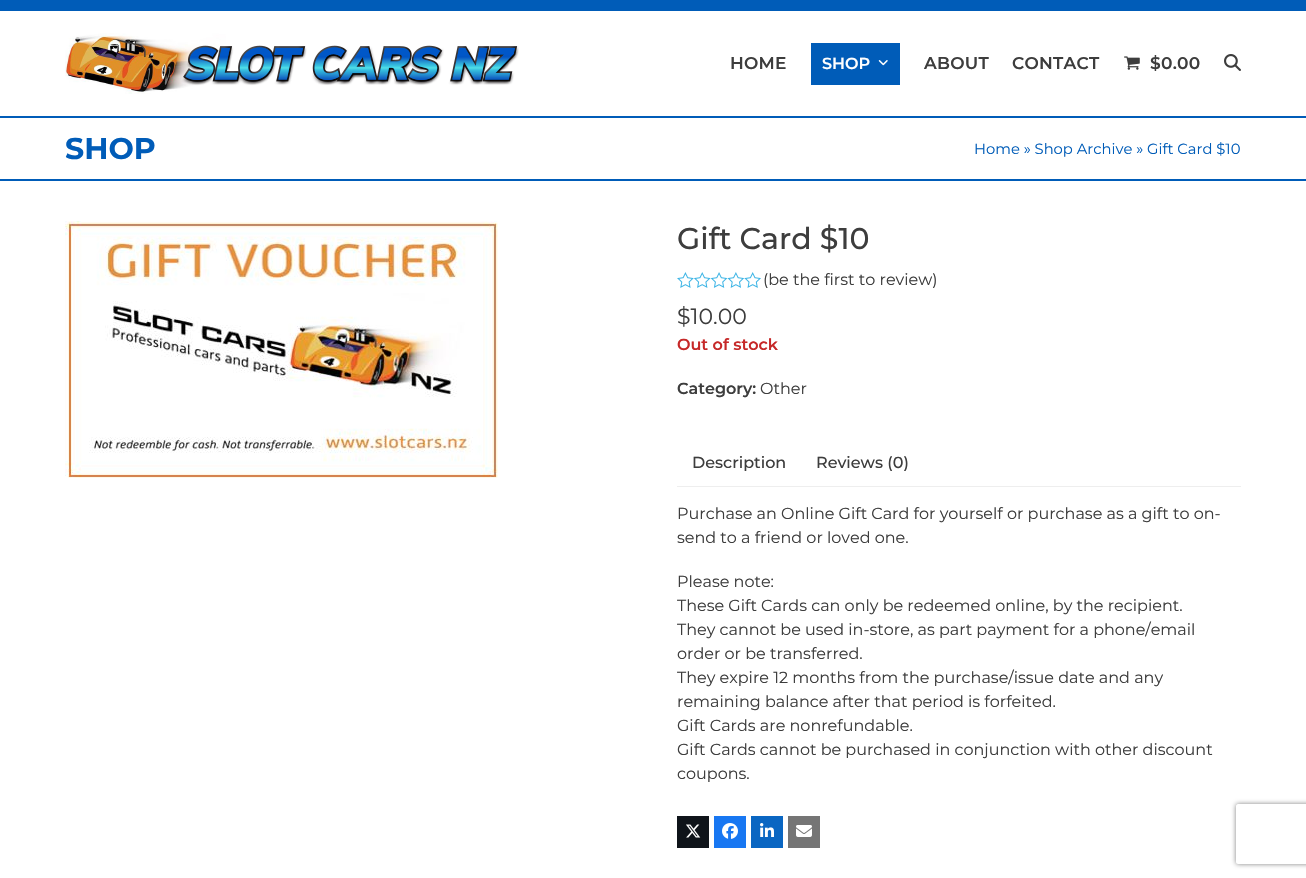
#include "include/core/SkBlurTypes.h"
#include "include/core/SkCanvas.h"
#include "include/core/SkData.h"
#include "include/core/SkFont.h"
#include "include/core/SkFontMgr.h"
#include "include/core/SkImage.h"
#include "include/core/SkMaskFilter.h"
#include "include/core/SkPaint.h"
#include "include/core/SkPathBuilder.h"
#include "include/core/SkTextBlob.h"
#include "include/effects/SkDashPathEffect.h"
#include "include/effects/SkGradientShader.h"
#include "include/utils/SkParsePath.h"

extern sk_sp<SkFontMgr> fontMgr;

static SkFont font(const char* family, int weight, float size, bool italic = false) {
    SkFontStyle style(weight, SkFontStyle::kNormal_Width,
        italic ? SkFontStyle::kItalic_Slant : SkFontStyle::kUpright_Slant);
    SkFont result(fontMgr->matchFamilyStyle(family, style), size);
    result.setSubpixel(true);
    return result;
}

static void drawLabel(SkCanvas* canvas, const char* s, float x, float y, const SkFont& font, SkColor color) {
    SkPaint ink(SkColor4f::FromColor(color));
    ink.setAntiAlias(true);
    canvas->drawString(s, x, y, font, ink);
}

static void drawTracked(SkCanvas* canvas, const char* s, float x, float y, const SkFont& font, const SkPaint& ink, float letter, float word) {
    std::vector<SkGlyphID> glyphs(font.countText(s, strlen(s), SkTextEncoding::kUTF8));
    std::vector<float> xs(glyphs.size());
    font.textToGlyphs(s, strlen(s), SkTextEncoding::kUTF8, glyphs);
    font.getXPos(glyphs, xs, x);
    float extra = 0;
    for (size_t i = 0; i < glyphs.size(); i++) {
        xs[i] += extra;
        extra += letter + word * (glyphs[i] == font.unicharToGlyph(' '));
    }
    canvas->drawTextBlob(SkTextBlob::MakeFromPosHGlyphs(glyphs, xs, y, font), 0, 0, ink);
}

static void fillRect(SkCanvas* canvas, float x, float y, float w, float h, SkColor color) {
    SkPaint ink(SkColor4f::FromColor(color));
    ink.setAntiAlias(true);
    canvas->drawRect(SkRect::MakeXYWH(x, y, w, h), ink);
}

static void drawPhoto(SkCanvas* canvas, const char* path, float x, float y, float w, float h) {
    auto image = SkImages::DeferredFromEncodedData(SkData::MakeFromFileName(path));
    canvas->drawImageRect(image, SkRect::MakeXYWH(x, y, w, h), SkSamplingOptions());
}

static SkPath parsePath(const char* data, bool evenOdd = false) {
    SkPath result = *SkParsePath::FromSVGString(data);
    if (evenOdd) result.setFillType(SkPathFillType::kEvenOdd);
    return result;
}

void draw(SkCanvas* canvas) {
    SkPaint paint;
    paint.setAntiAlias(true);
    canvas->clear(0xFFFFFFFF);
    fillRect(canvas, 0, 0, 1306, 11, 0xFF005CB8);
    drawPhoto(canvas, "assets/img1.png", 65, 33, 454, 61);
    SkFont font1 = font("Montserrat", 600, 17);
    paint.setColor(0xFF3D3D3D);
    drawTracked(canvas, "HOME", 730, 69, font1, paint, 0.25f, 0);
    fillRect(canvas, 811, 43, 89, 42, 0xFF005CB8);
    SkFont font2 = font("Montserrat", 600, 16);
    drawLabel(canvas, "SHOP", 822, 69, font2, 0xFFFFFFFF);
    drawPhoto(canvas, "assets/img2.png", 878, 60, 10, 6);
    drawTracked(canvas, "ABOUT", 924, 69, font1, paint, 0.25f, 0);
    drawTracked(canvas, "CONTACT", 1012, 69, font1, paint, 0.25f, 0);
    drawPhoto(canvas, "assets/img3.png", 1124, 56, 16, 14);
    drawTracked(canvas, "$0.00", 1150, 69, font1, paint, 0.25f, 0);
    drawPhoto(canvas, "assets/img4.png", 1224, 54, 17, 17);
    fillRect(canvas, 0, 116, 1306, 2, 0xFF005CB8);
    fillRect(canvas, 0, 179, 1306, 2, 0xFF005CB8);
    SkFont font3 = font("Montserrat", 700, 30);
    drawLabel(canvas, "SHOP", 65, 159, font3, 0xFF005CB8);
    SkFont font4 = font("Montserrat", 400, 14.75f);
    drawLabel(canvas, "Home » Shop Archive » Gift Card $10", 974, 154, font4, 0xFF005CB8);
    drawPhoto(canvas, "assets/img5.png", 65, 221, 433, 257);
    SkFont font5 = font("Montserrat", 500, 30);
    drawLabel(canvas, "Gift Card $10", 677, 249, font5, 0xFF3D3D3D);
    drawPhoto(canvas, "assets/img6.png", 677, 272, 84, 16);
    SkFont font6 = font("Montserrat", 400, 16);
    drawLabel(canvas, "(be the first to review)", 763, 285, font6, 0xFF3D3D3D);
    SkFont font7 = font("Montserrat", 400, 22);
    drawLabel(canvas, "$10.00", 677, 324, font7, 0xFF3D3D3D);
    drawLabel(canvas, "Out of stock", 677, 350, font2, 0xFFC62828);
    drawLabel(canvas, "Category:", 677, 394, font2, 0xFF3D3D3D);
    drawLabel(canvas, "Other", 760, 394, font6, 0xFF3D3D3D);
    SkFont font8 = font("Montserrat", 500, 16);
    drawLabel(canvas, "Description", 692, 468, font8, 0xFF3D3D3D);
    drawLabel(canvas, "Reviews (0)", 816, 468, font8, 0xFF3D3D3D);
    fillRect(canvas, 677, 486, 564, 1, 0xFFEEEEEE);
    drawLabel(canvas, "Purchase an Online Gift Card for yourself or purchase as a gift to on-", 677, 519, font6, 0xFF3D3D3D);
    drawLabel(canvas, "send to a friend or loved one.", 677, 543, font6, 0xFF3D3D3D);
    drawLabel(canvas, "Please note:", 677, 587, font6, 0xFF3D3D3D);
    drawLabel(canvas, "These Gift Cards can only be redeemed online, by the recipient.", 677, 611, font6, 0xFF3D3D3D);
    drawLabel(canvas, "They cannot be used in-store, as part payment for a phone/email", 677, 635, font6, 0xFF3D3D3D);
    drawLabel(canvas, "order or be transferred.", 677, 659, font6, 0xFF3D3D3D);
    drawLabel(canvas, "They expire 12 months from the purchase/issue date and any", 677, 683, font6, 0xFF3D3D3D);
    drawLabel(canvas, "remaining balance after that period is forfeited.", 677, 707, font6, 0xFF3D3D3D);
    drawLabel(canvas, "Gift Cards are nonrefundable.", 677, 731, font6, 0xFF3D3D3D);
    drawLabel(canvas, "Gift Cards cannot be purchased in conjunction with other discount", 677, 755, font6, 0xFF3D3D3D);
    drawLabel(canvas, "coupons.", 677, 779, font6, 0xFF3D3D3D);
    fillRect(canvas, 677, 816, 32, 32, 0xFF0F141A);
    drawPhoto(canvas, "assets/img7.png", 686, 824, 15, 14);
    fillRect(canvas, 714, 816, 32, 32, 0xFF1877F2);
    drawPhoto(canvas, "assets/img8.png", 722, 823, 16, 16);
    fillRect(canvas, 751, 816, 32, 32, 0xFF0A66C2);
    drawPhoto(canvas, "assets/img9.png", 760, 823, 14, 14);
    fillRect(canvas, 788, 816, 32, 32, 0xFF757575);
    drawPhoto(canvas, "assets/img10.png", 796, 825, 16, 12);
    canvas->save();
    canvas->clipPath(parsePath("M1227 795H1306V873H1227ZM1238 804H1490C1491 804 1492 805 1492 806V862C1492 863 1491 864 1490 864H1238C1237 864 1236 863 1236 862V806C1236 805 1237 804 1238 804Z", true), true);
    paint.setColor(0xFF808080);
    paint.setMaskFilter(SkMaskFilter::MakeBlur(kNormal_SkBlurStyle, 2.5f));
    canvas->drawRoundRect(SkRect::MakeXYWH(1236, 804, 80, 60), 2, 2, paint);
    paint.setMaskFilter(nullptr);
    canvas->restore();
}
